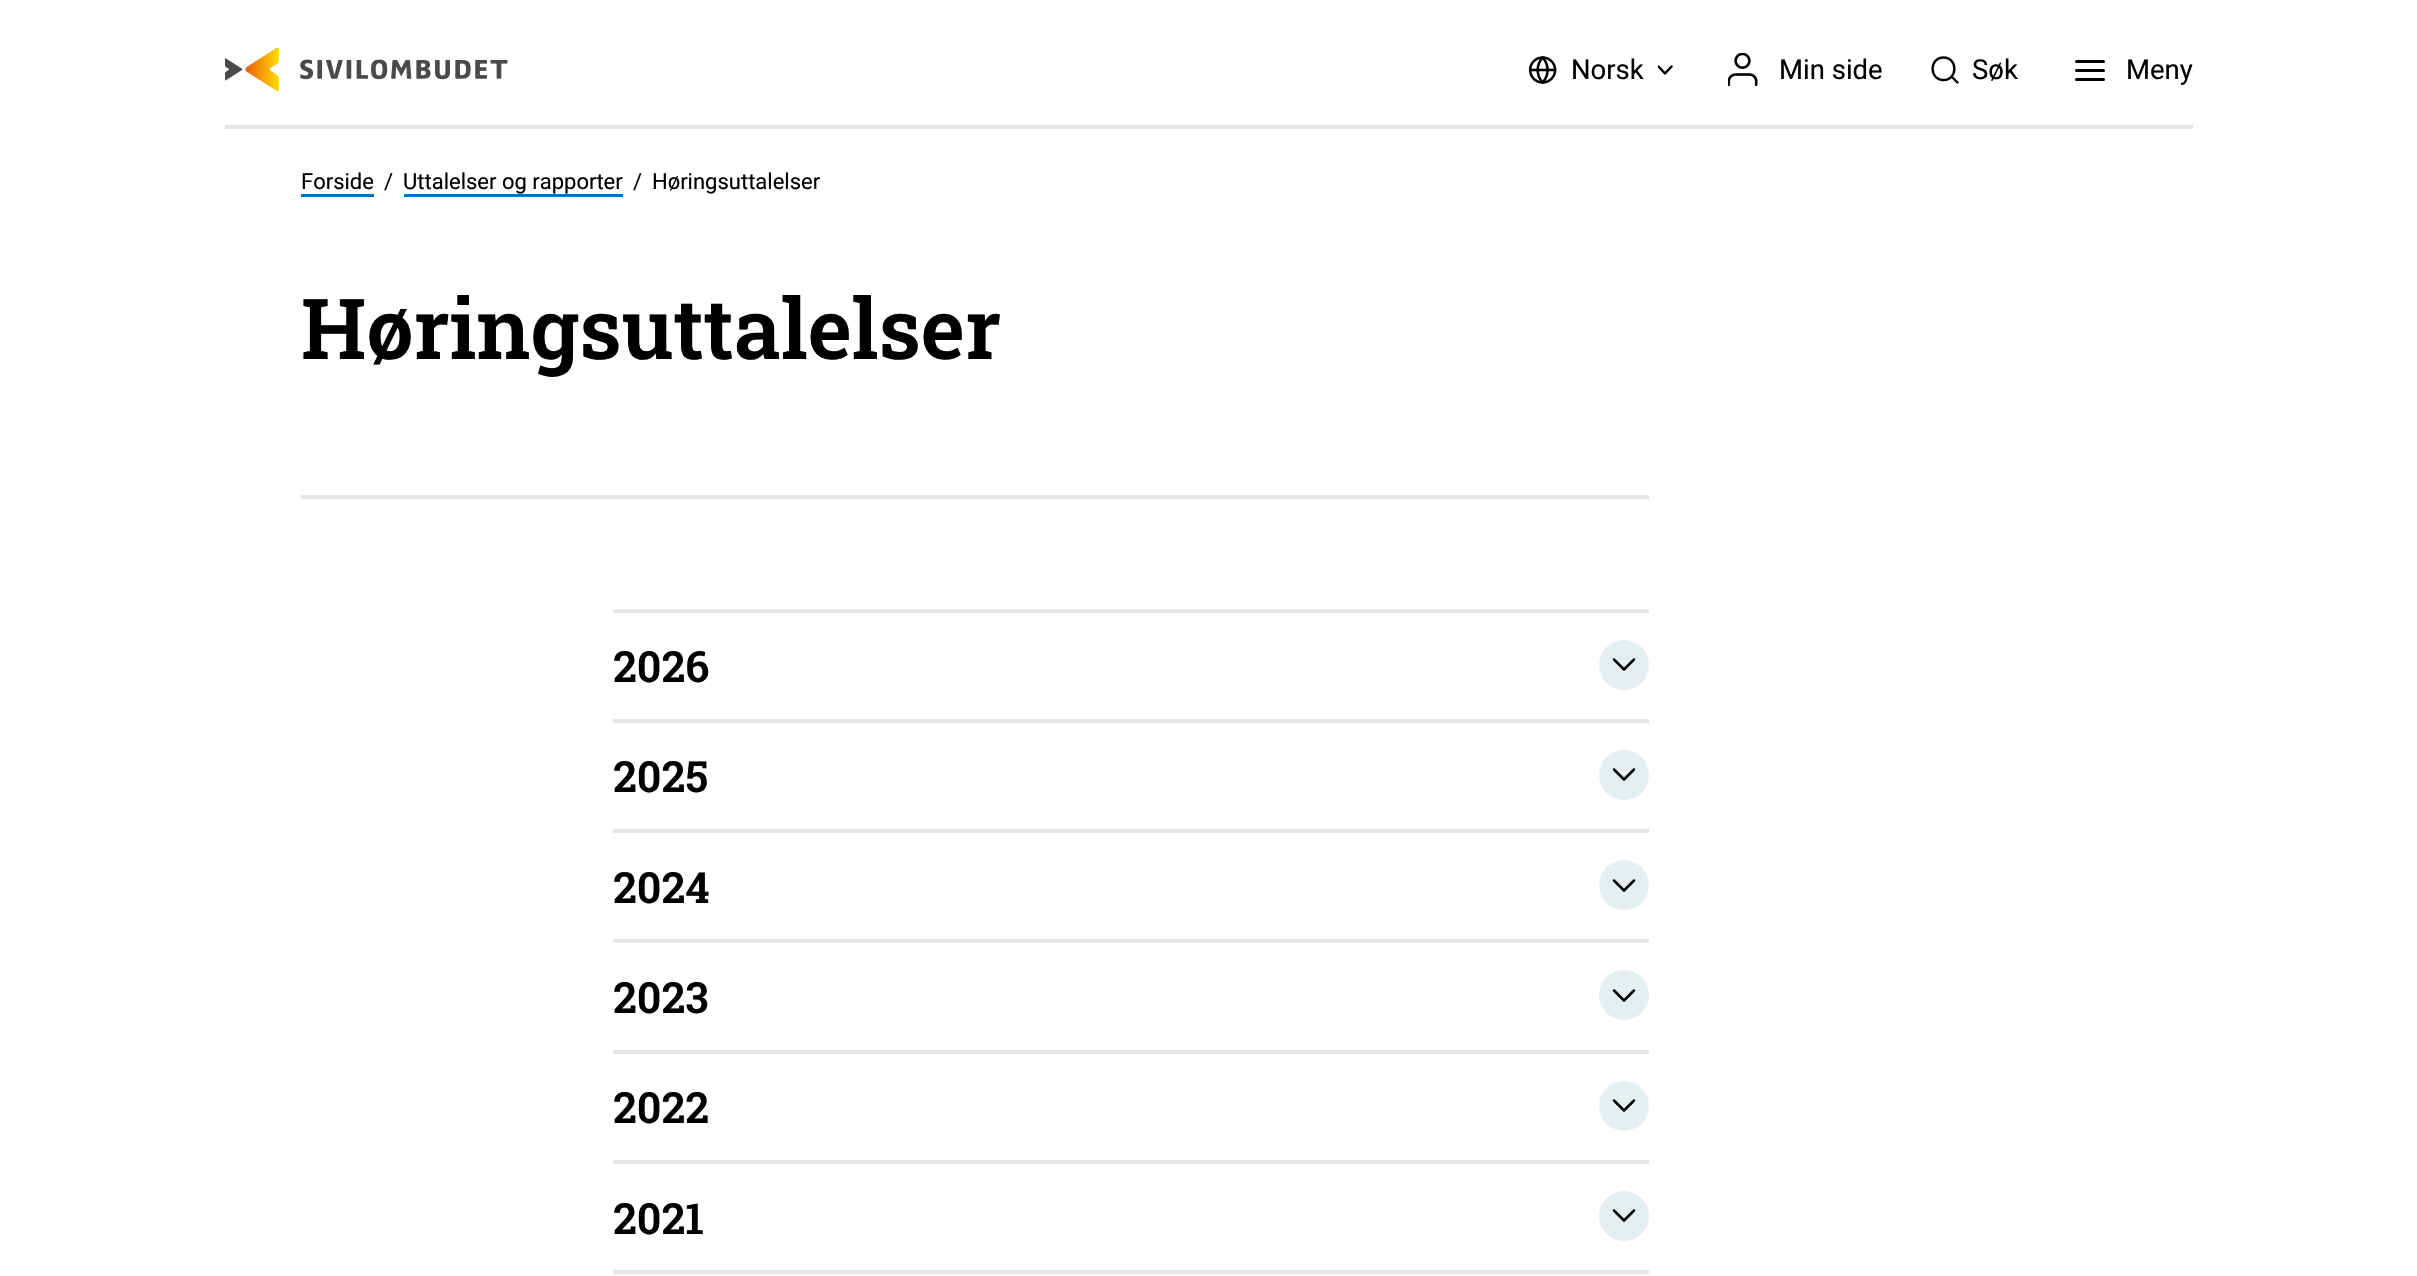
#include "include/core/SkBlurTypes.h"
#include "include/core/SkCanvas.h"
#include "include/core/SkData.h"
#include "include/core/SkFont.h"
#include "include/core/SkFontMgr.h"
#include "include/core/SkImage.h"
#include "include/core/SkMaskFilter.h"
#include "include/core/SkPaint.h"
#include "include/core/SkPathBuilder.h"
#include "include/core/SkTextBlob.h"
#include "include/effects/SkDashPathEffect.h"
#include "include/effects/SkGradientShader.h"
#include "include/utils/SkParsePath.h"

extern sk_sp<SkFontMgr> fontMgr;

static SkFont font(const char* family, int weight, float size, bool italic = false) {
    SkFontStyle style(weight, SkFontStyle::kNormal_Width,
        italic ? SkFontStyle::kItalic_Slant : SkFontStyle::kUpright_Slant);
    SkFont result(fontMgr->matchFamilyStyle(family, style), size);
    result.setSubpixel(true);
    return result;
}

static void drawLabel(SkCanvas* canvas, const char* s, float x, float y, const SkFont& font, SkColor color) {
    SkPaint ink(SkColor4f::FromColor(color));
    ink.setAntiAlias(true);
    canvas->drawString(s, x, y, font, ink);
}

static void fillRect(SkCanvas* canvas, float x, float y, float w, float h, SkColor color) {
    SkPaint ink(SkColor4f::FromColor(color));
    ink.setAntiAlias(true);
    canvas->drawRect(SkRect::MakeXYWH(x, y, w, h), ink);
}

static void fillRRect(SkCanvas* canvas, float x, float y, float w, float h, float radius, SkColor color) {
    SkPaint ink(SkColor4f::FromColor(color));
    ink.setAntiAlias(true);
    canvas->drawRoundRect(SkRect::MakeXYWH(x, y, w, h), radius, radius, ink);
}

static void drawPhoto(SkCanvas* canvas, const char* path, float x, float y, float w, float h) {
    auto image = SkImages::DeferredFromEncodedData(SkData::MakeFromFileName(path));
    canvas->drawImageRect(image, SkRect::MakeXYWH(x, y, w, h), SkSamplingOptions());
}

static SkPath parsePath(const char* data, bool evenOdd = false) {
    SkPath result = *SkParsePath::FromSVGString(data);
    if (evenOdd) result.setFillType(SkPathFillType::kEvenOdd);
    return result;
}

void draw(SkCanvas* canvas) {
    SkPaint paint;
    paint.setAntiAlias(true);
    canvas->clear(0xFFFFFFFF);
    fillRect(canvas, 225, 125, 1968, 4, 0xFFE6E4E5);
    drawPhoto(canvas, "assets/img1.png", 225, 48, 283, 43);
    drawPhoto(canvas, "assets/img2.png", 1528, 56, 29, 28);
    SkFont font1 = font("Roboto", 400, 27.5f);
    drawLabel(canvas, "Norsk", 1571, 79, font1, 0xFF000000);
    canvas->save();
    canvas->clipRect(SkRect::MakeXYWH(1658, 65, 15, 10));
    paint.setStroke(true);
    paint.setStrokeWidth(2.5f);
    paint.setStrokeCap(SkPaint::kRound_Cap);
    paint.setStrokeJoin(SkPaint::kRound_Join);
    paint.setColor(0xFF000000);
    canvas->drawPath(parsePath("M1658.5 66.5L1665 73.5L1671.5 66.5"), paint);
    canvas->restore();
    drawPhoto(canvas, "assets/img3.png", 1728, 53, 30, 33);
    drawLabel(canvas, "Min side", 1779, 79, font1, 0xFF000000);
    paint.setStrokeWidth(2.4f);
    canvas->drawPath(parsePath("M1943.5 80C1958 80 1958 57.5 1943.5 57.5C1929 57.5 1929 80 1943.5 80ZM1957.5 82.5L1951.5 76.5"), paint);
    drawLabel(canvas, "Søk", 1972, 79, font1, 0xFF000000);
    fillRRect(canvas, 2075, 60, 30, 3, 1.5f, 0xFF000000);
    fillRRect(canvas, 2075, 69, 30, 3, 1.5f, 0xFF000000);
    fillRRect(canvas, 2075, 78, 30, 3, 1.5f, 0xFF000000);
    drawLabel(canvas, "Meny", 2126, 79, font1, 0xFF000000);
    SkFont font2 = font("Roboto", 400, 22);
    drawLabel(canvas, "Forside", 301, 189, font2, 0xFF000000);
    fillRect(canvas, 301, 194, 73, 3, 0xFF0275C0);
    drawLabel(canvas, "/", 384, 189, font2, 0xFF000000);
    drawLabel(canvas, "Uttalelser og rapporter", 403, 189, font2, 0xFF000000);
    fillRect(canvas, 404, 194, 219, 3, 0xFF0275C0);
    drawLabel(canvas, "/", 633, 189, font2, 0xFF000000);
    drawLabel(canvas, "Høringsuttalelser", 652, 189, font2, 0xFF000000);
    SkFont font3 = font("Roboto Slab", 600, 84);
    drawLabel(canvas, "Høringsuttalelser", 301, 359, font3, 0xFF000000);
    fillRect(canvas, 301, 495, 1348, 4, 0xFFE6E4E5);
    fillRect(canvas, 613, 609, 1036, 4, 0xFFE6E4E5);
    SkFont font4 = font("Roboto Slab", 600, 43);
    drawLabel(canvas, "2026", 613, 682, font4, 0xFF000000);
    paint.setStroke(false);
    paint.setColor(0xFFE5EFF2);
    canvas->drawCircle(1624, 665, 25, paint);
    paint.setStroke(true);
    paint.setStrokeWidth(2.5f);
    paint.setColor(0xFF000000);
    canvas->drawPath(parsePath("M1614 659.5L1624 669.5L1634 659.5"), paint);
    fillRect(canvas, 613, 719, 1036, 4, 0xFFE6E4E5);
    drawLabel(canvas, "2025", 613, 792, font4, 0xFF000000);
    paint.setStroke(false);
    paint.setColor(0xFFE5EFF2);
    canvas->drawCircle(1624, 775, 25, paint);
    paint.setStroke(true);
    paint.setColor(0xFF000000);
    canvas->drawPath(parsePath("M1614 769.5L1624 779.5L1634 769.5"), paint);
    fillRect(canvas, 613, 829, 1036, 4, 0xFFE6E4E5);
    drawLabel(canvas, "2024", 613, 903, font4, 0xFF000000);
    paint.setStroke(false);
    paint.setColor(0xFFE5EFF2);
    canvas->drawCircle(1624, 885, 25, paint);
    paint.setStroke(true);
    paint.setColor(0xFF000000);
    canvas->drawPath(parsePath("M1614 880.5L1624 890.5L1634 880.5"), paint);
    fillRect(canvas, 613, 939, 1036, 4, 0xFFE6E4E5);
    drawLabel(canvas, "2023", 613, 1013, font4, 0xFF000000);
    paint.setStroke(false);
    paint.setColor(0xFFE5EFF2);
    canvas->drawCircle(1624, 995, 25, paint);
    paint.setStroke(true);
    paint.setColor(0xFF000000);
    canvas->drawPath(parsePath("M1614 990.5L1624 1000.5L1634 990.5"), paint);
    fillRect(canvas, 613, 1050, 1036, 4, 0xFFE6E4E5);
    drawLabel(canvas, "2022", 613, 1123, font4, 0xFF000000);
    paint.setStroke(false);
    paint.setColor(0xFFE5EFF2);
    canvas->drawCircle(1624, 1106, 25, paint);
    paint.setStroke(true);
    paint.setColor(0xFF000000);
    canvas->drawPath(parsePath("M1614 1100.5L1624 1110.5L1634 1100.5"), paint);
    fillRect(canvas, 613, 1160, 1036, 4, 0xFFE6E4E5);
    drawLabel(canvas, "2021", 613, 1234, font4, 0xFF000000);
    paint.setStroke(false);
    paint.setColor(0xFFE5EFF2);
    canvas->drawCircle(1624, 1216, 25, paint);
    paint.setStroke(true);
    paint.setColor(0xFF000000);
    canvas->drawPath(parsePath("M1614 1210.5L1624 1220.5L1634 1210.5"), paint);
    fillRect(canvas, 613, 1270, 1036, 4, 0xFFE6E4E5);
}
